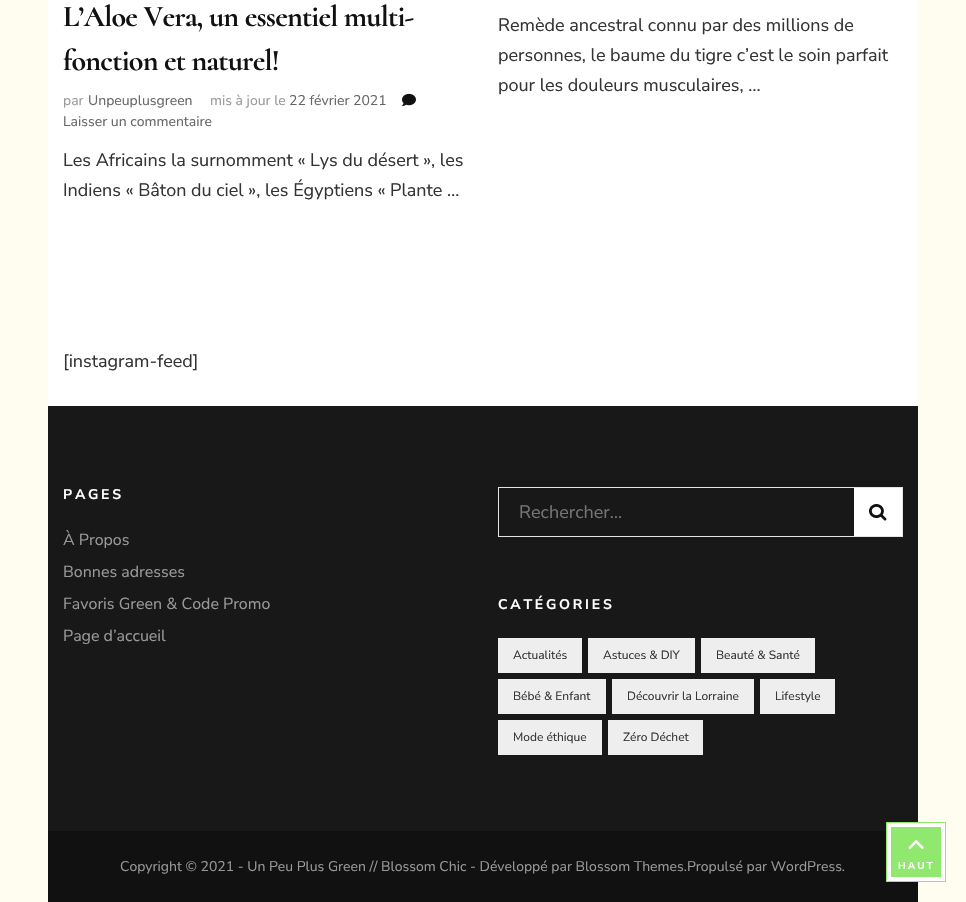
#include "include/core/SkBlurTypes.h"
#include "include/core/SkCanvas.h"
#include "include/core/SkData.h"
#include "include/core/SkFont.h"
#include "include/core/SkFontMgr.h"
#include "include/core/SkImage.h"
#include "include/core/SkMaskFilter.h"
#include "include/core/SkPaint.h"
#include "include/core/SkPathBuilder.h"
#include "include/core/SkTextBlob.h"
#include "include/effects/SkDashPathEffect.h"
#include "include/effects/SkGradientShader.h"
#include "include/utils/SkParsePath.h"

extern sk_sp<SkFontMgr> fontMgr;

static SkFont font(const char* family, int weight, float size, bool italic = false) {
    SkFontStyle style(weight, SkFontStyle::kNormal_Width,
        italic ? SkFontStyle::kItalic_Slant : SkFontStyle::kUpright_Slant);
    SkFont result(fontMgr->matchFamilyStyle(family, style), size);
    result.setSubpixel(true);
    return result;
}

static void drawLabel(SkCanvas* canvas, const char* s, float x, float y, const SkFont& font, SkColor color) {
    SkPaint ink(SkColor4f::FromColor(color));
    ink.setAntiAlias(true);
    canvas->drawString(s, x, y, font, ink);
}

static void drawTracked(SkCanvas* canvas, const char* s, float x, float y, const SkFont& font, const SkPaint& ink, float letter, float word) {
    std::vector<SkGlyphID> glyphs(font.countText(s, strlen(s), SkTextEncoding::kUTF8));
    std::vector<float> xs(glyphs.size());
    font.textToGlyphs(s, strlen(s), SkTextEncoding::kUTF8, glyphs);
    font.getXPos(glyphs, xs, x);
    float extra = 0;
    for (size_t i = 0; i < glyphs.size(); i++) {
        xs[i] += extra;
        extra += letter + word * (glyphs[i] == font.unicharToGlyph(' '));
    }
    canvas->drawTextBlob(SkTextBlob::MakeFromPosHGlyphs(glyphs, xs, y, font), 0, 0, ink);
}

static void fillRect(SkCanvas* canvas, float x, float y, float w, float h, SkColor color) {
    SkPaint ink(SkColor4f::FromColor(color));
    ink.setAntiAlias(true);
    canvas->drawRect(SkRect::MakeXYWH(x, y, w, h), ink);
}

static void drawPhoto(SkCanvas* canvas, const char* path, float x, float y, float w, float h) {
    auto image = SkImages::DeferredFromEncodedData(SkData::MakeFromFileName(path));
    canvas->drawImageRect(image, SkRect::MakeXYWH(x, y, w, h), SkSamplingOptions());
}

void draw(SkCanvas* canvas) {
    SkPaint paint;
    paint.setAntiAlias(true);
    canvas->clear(0xFFFFFDF0);
    fillRect(canvas, 48, 0, 870, 406, 0xFFFFFFFF);
    SkFont font1 = font("Cormorant", 700, 30);
    paint.setColor(0xFF111111);
    drawTracked(canvas, "L’Aloe Vera, un essentiel multi-", 63, 26, font1, paint, -0.75f, 0);
    drawTracked(canvas, "fonction et naturel!", 63, 70, font1, paint, -0.75f, 0);
    SkFont font2 = font("Nunito Sans", 400, 14);
    drawLabel(canvas, "par", 63, 105, font2, 0xFF999999);
    drawLabel(canvas, "Unpeuplusgreen", 88, 105, font2, 0xFF666666);
    drawLabel(canvas, "mis à jour le", 210, 105, font2, 0xFF999999);
    drawLabel(canvas, "22 février 2021", 289, 105, font2, 0xFF666666);
    drawPhoto(canvas, "assets/img1.png", 402, 93, 14, 14);
    drawLabel(canvas, "Laisser un commentaire", 63, 126, font2, 0xFF666666);
    SkFont font3 = font("Nunito Sans", 400, 18);
    drawLabel(canvas, "Les Africains la surnomment « Lys du désert », les", 63, 166, font3, 0xFF333333);
    drawLabel(canvas, "Indiens « Bâton du ciel », les Égyptiens « Plante …", 63, 196, font3, 0xFF333333);
    drawLabel(canvas, "Remède ancestral connu par des millions de", 498, 31, font3, 0xFF333333);
    drawLabel(canvas, "personnes, le baume du tigre c’est le soin parfait", 498, 61, font3, 0xFF333333);
    drawLabel(canvas, "pour les douleurs musculaires, …", 498, 91, font3, 0xFF333333);
    drawLabel(canvas, "[instagram-feed]", 63, 367, font3, 0xFF333333);
    fillRect(canvas, 48, 406, 870, 425, 0xFF181818);
    SkFont font4 = font("Nunito Sans", 700, 14);
    paint.setColor(0xFFFFFFFF);
    drawTracked(canvas, "PAGES", 63, 499, font4, paint, 2.75f, 0);
    SkFont font5 = font("Nunito Sans", 400, 16);
    drawLabel(canvas, "À Propos", 63, 545, font5, 0xFF999999);
    drawLabel(canvas, "Bonnes adresses", 63, 577, font5, 0xFF999999);
    drawLabel(canvas, "Favoris Green & Code Promo", 63, 609, font5, 0xFF999999);
    drawLabel(canvas, "Page d’accueil", 63, 641, font5, 0xFF999999);
    paint.setStroke(true);
    paint.setStrokeWidth(1);
    paint.setColor(0xFFE5E5E5);
    canvas->drawRect(SkRect::MakeXYWH(498.5f, 487.5f, 404, 49), paint);
    drawLabel(canvas, "Rechercher…", 519, 518, font3, 0xFF757575);
    fillRect(canvas, 854, 488, 48, 48, 0xFFFFFFFF);
    drawPhoto(canvas, "assets/img2.png", 869, 504, 18, 17);
    paint.setStroke(false);
    paint.setColor(0xFFFFFFFF);
    drawTracked(canvas, "CATÉGORIES", 498, 609, font4, paint, 2.75f, 0);
    fillRect(canvas, 498, 638, 84, 35, 0xFFEEEEEE);
    SkFont font6 = font("Nunito Sans", 400, 12);
    drawLabel(canvas, "Actualités", 513, 659, font6, 0xFF333333);
    fillRect(canvas, 588, 638, 107, 35, 0xFFEEEEEE);
    drawLabel(canvas, "Astuces & DIY", 603, 659, font6, 0xFF333333);
    fillRect(canvas, 701, 638, 114, 35, 0xFFEEEEEE);
    drawLabel(canvas, "Beauté & Santé", 716, 659, font6, 0xFF333333);
    fillRect(canvas, 498, 679, 108, 35, 0xFFEEEEEE);
    drawLabel(canvas, "Bébé & Enfant", 513, 700, font6, 0xFF333333);
    fillRect(canvas, 612, 679, 142, 35, 0xFFEEEEEE);
    drawLabel(canvas, "Découvrir la Lorraine", 627, 700, font6, 0xFF333333);
    fillRect(canvas, 760, 679, 75, 35, 0xFFEEEEEE);
    drawLabel(canvas, "Lifestyle", 775, 700, font6, 0xFF333333);
    fillRect(canvas, 498, 720, 104, 35, 0xFFEEEEEE);
    drawLabel(canvas, "Mode éthique", 513, 741, font6, 0xFF333333);
    fillRect(canvas, 608, 720, 95, 35, 0xFFEEEEEE);
    drawLabel(canvas, "Zéro Déchet", 623, 741, font6, 0xFF333333);
    fillRect(canvas, 48, 831, 870, 71, 0xFF111111);
    drawLabel(canvas, "Copyright © 2021 - Un Peu Plus Green // Blossom Chic - Développé par Blossom Themes.Propulsé par WordPress.", 120, 871, font2, 0xFF999999);
    fillRect(canvas, 886, 822, 60, 60, 0xFF91E86F);
    drawPhoto(canvas, "assets/img3.png", 908, 840, 16, 9);
    paint.setStroke(true);
    paint.setStrokeWidth(4);
    canvas->drawRect(SkRect::MakeXYWH(889, 825, 54, 54), paint);
    SkFont font7 = font("Nunito Sans", 700, 10);
    paint.setStroke(false);
    drawTracked(canvas, "HAUT", 898, 869, font7, paint, 2, 0);
}
